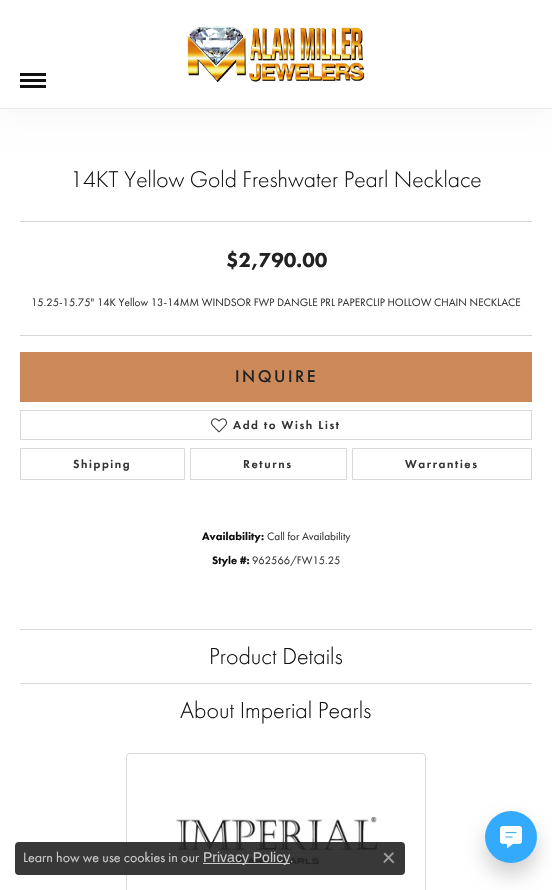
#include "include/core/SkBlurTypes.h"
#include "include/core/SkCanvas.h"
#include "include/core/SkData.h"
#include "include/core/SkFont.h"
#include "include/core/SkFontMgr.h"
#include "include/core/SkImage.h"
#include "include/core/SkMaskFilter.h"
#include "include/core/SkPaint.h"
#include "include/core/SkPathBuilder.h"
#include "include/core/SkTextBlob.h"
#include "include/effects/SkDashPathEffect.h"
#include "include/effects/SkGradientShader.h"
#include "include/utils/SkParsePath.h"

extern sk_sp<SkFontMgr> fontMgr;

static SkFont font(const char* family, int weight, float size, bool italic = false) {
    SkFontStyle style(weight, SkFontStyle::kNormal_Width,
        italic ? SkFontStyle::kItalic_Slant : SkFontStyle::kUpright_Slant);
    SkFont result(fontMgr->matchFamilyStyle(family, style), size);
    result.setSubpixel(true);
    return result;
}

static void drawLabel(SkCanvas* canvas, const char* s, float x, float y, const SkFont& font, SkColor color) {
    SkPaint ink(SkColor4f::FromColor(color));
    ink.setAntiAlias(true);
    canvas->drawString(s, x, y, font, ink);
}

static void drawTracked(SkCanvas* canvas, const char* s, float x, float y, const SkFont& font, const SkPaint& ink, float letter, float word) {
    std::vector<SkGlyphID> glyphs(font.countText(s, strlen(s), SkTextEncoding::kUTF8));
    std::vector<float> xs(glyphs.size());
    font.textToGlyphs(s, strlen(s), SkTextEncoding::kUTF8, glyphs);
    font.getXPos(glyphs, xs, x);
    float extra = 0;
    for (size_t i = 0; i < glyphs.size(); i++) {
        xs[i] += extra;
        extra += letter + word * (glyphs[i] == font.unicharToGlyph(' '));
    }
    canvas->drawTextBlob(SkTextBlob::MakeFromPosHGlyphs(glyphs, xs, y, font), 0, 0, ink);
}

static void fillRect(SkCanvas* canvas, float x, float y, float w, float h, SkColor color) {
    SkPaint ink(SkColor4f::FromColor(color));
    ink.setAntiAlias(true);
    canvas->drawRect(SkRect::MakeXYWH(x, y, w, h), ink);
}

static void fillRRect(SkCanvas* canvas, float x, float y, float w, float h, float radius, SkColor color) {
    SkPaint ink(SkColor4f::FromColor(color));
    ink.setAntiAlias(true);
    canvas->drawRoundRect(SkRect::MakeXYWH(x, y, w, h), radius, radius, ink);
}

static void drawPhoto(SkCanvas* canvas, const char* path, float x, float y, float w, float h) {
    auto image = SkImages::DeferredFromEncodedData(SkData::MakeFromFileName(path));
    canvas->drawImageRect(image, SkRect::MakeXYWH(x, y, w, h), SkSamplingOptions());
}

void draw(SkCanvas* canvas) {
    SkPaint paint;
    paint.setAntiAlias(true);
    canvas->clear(0xFFFFFFFF);
    paint.setColor(0x0D000000);
    paint.setMaskFilter(SkMaskFilter::MakeBlur(kNormal_SkBlurStyle, 15));
    canvas->drawRect(SkRect::MakeXYWH(0, 0, 552, 109), paint);
    paint.setMaskFilter(nullptr);
    fillRect(canvas, 0, 0, 552, 108, 0xFFFFFFFF);
    fillRect(canvas, 0, 108, 552, 1, 0xFFECECEC);
    fillRect(canvas, 20, 73, 26, 3, 0xFF111111);
    fillRect(canvas, 20, 79, 26, 3, 0xFF111111);
    fillRect(canvas, 20, 85, 26, 3, 0xFF111111);
    drawPhoto(canvas, "assets/img1.png", 186, 26, 179, 57);
    SkFont font1 = font("Futura PT", 300, 23.6f);
    drawLabel(canvas, "14KT Yellow Gold Freshwater Pearl Necklace", 70, 187, font1, 0xFF111111);
    fillRect(canvas, 20, 221, 512, 1, 0xFFD5D5D5);
    SkFont font2 = font("Futura PT", 900, 21);
    drawLabel(canvas, "$2,790.00", 226, 267, font2, 0xFF222222);
    SkFont font3 = font("Futura PT", 400, 11.2f);
    drawLabel(canvas, "15.25-15.75\" 14K Yellow 13-14MM WINDSOR FWP DANGLE PRL PAPERCLIP HOLLOW CHAIN NECKLACE", 31, 306, font3, 0xFF353535);
    fillRect(canvas, 20, 335, 512, 1, 0xFFD5D5D5);
    fillRect(canvas, 20, 352, 512, 50, 0xFFCC8A5B);
    SkFont font4 = font("Futura PT", 500, 17.5f);
    paint.setColor(0xFF222222);
    drawTracked(canvas, "INQUIRE", 235, 382, font4, paint, 2.5f, 0);
    paint.setStroke(true);
    paint.setStrokeWidth(1);
    paint.setColor(0xFFD9D9D9);
    canvas->drawRect(SkRect::MakeXYWH(20.5f, 410.5f, 511, 29), paint);
    drawPhoto(canvas, "assets/img2.png", 211, 418, 16, 15);
    SkFont font5 = font("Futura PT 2", 500, 12);
    paint.setStroke(false);
    paint.setColor(0xFF353535);
    drawTracked(canvas, "Add to Wish List", 233, 429, font5, paint, 1.6f, 0);
    paint.setStroke(true);
    paint.setColor(0xFFD9D9D9);
    canvas->drawRect(SkRect::MakeXYWH(20.5f, 448.5f, 164, 31), paint);
    paint.setStroke(false);
    paint.setColor(0xFF353535);
    drawTracked(canvas, "Shipping", 73, 468, font5, paint, 1.6f, 0);
    paint.setStroke(true);
    paint.setColor(0xFFD9D9D9);
    canvas->drawRect(SkRect::MakeXYWH(190.5f, 448.5f, 156, 31), paint);
    paint.setStroke(false);
    paint.setColor(0xFF353535);
    drawTracked(canvas, "Returns", 243, 468, font5, paint, 1.6f, 0);
    paint.setStroke(true);
    paint.setColor(0xFFD9D9D9);
    canvas->drawRect(SkRect::MakeXYWH(352.5f, 448.5f, 179, 31), paint);
    paint.setStroke(false);
    paint.setColor(0xFF353535);
    drawTracked(canvas, "Warranties", 405, 468, font5, paint, 1.6f, 0);
    SkFont font6 = font("Futura PT", 900, 11.2f);
    drawLabel(canvas, "Availability:", 202, 540, font6, 0xFF111111);
    drawLabel(canvas, "Call for Availability", 267, 540, font3, 0xFF353535);
    drawLabel(canvas, "Style #:", 212, 564, font6, 0xFF111111);
    drawLabel(canvas, "962566/FW15.25", 252, 564, font3, 0xFF353535);
    fillRect(canvas, 20, 629, 512, 1, 0xFFD9D9D9);
    SkFont font7 = font("Futura PT", 300, 24);
    drawLabel(canvas, "Product Details", 209, 664, font7, 0xFF111111);
    fillRect(canvas, 20, 683, 512, 1, 0xFFD9D9D9);
    drawLabel(canvas, "About Imperial Pearls", 180, 718, font7, 0xFF111111);
    paint.setStroke(true);
    paint.setColor(0xFFD9D9D9);
    canvas->drawRoundRect(SkRect::MakeXYWH(126.5f, 753.5f, 299, 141), 3.5f, 3.5f, paint);
    drawPhoto(canvas, "assets/img3.png", 175, 816, 203, 49);
    fillRRect(canvas, 15, 842, 390, 33, 4, 0xE6222222);
    SkFont font8 = font("Futura PT", 400, 14);
    drawLabel(canvas, "Learn how we use cookies in our", 23, 862, font8, 0xFFCCCCCC);
    fillRect(canvas, 203, 863, 87, 1, 0xFFCCCCCC);
    SkFont font9 = font("Liberation Sans", 400, 14);
    drawLabel(canvas, "Privacy Policy", 203, 862, font9, 0xFFCCCCCC);
    drawLabel(canvas, ".", 290, 862, font8, 0xFFCCCCCC);
    drawPhoto(canvas, "assets/img4.png", 383, 852, 12, 12);
    paint.setStroke(false);
    paint.setColor(0x2E000000);
    paint.setMaskFilter(SkMaskFilter::MakeBlur(kNormal_SkBlurStyle, 9.5f));
    canvas->drawRoundRect(SkRect::MakeXYWH(485, 823, 52, 52), 26, 26, paint);
    paint.setMaskFilter(nullptr);
    paint.setColor(0xFF33AAFC);
    canvas->drawCircle(511, 837, 26, paint);
    drawPhoto(canvas, "assets/img5.png", 500, 826, 22, 22);
}
